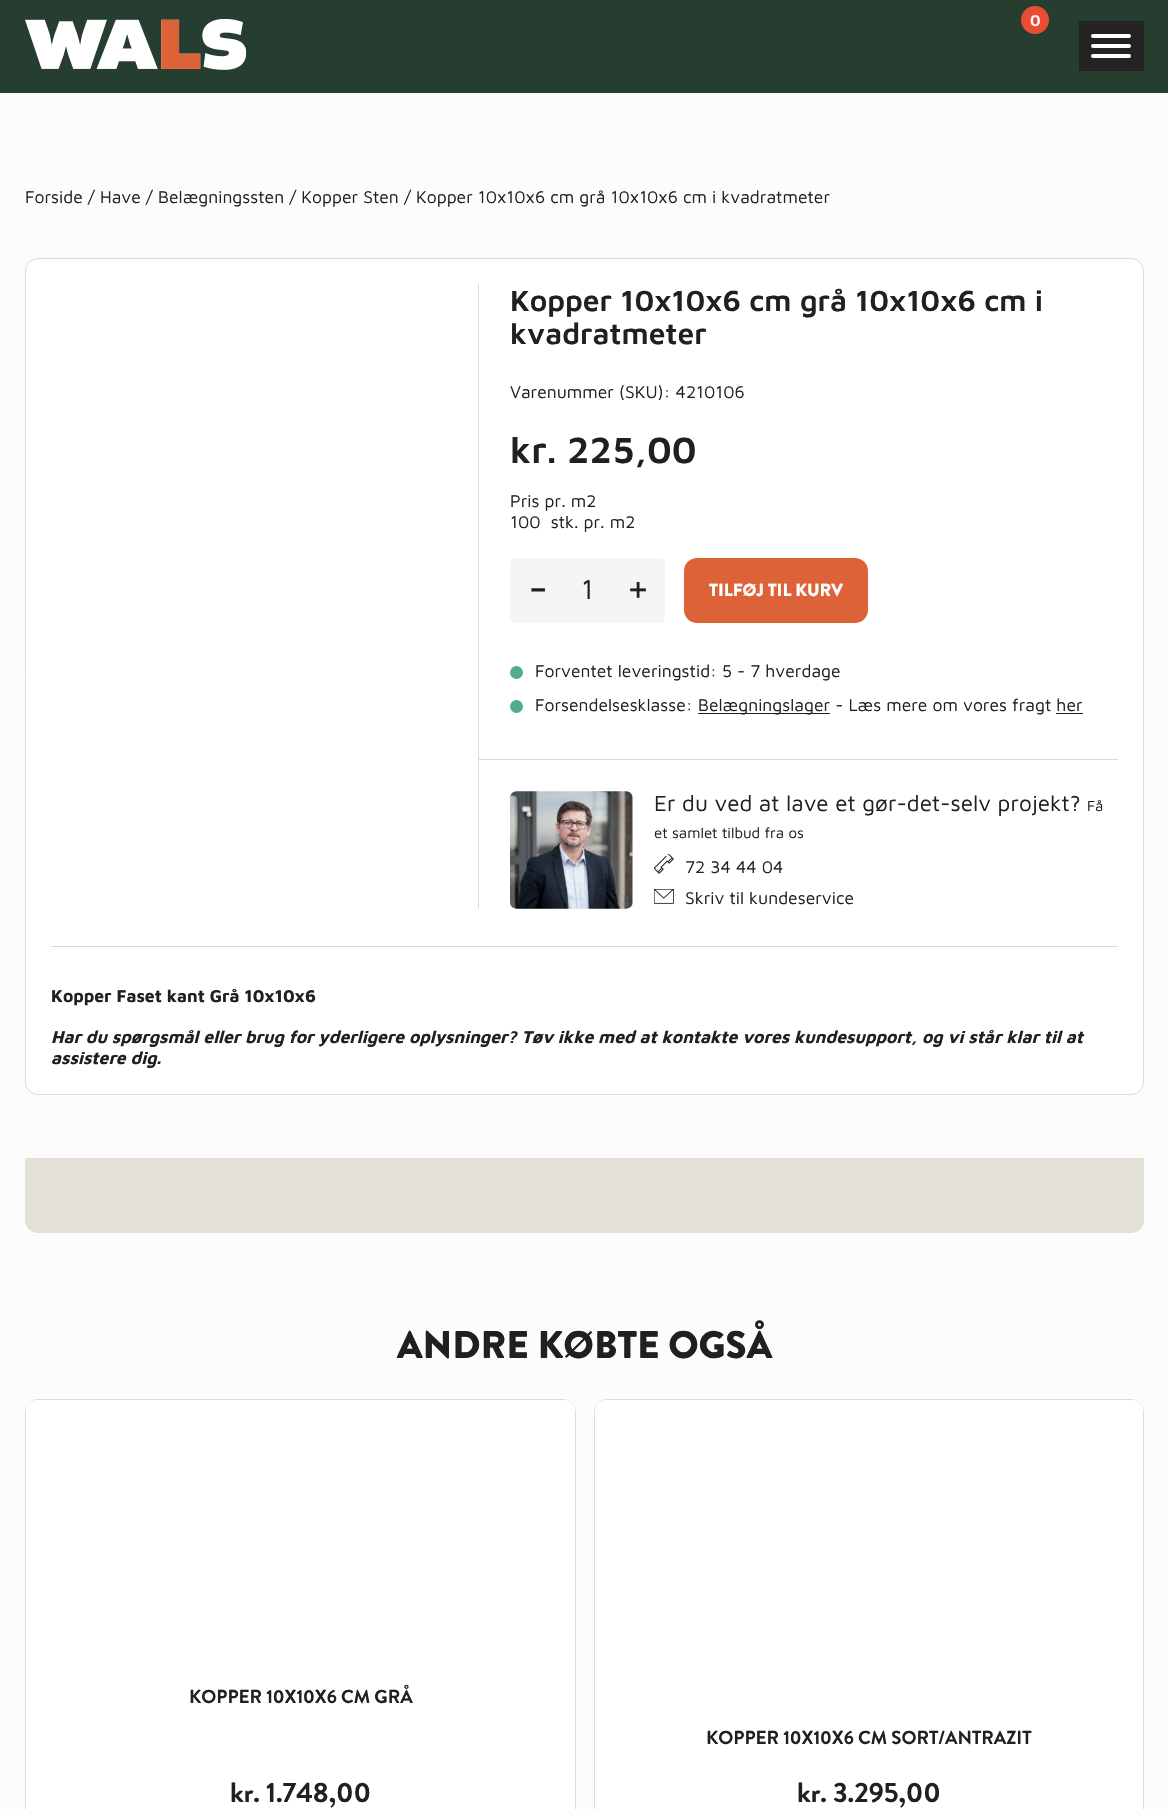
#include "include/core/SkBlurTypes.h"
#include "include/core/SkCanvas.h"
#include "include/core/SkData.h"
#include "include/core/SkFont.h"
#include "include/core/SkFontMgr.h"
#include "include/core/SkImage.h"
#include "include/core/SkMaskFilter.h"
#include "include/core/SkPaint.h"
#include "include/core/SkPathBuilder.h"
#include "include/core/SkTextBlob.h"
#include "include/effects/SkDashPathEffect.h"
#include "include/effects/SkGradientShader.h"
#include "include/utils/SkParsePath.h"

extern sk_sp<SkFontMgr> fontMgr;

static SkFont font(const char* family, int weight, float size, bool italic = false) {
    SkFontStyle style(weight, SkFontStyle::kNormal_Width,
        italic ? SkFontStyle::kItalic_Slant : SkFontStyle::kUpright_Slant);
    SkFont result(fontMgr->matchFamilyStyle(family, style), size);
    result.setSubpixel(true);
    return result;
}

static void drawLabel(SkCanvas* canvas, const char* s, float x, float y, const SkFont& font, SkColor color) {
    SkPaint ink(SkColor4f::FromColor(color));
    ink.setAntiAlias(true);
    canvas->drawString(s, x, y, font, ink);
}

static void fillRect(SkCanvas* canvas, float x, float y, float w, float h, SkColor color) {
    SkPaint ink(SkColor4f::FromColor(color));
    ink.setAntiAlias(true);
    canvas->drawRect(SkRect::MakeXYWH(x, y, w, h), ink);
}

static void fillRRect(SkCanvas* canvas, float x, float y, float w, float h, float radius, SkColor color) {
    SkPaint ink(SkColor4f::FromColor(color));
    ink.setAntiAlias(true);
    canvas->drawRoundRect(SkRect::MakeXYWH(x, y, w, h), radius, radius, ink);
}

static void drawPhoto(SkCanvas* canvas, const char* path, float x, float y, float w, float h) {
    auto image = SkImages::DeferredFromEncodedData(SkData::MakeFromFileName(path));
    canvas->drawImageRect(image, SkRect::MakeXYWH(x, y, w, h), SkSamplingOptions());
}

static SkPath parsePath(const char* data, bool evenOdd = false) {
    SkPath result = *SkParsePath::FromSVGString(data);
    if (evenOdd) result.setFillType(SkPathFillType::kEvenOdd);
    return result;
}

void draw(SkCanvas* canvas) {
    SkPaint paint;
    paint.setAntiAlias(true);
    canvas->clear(0xFFFCFCFC);
    fillRect(canvas, 0, 0, 1168, 93, 0xFF253E2F);
    drawPhoto(canvas, "assets/img1.png", 25, 19, 221, 51);
    paint.setColor(0xFFE94B35);
    canvas->drawCircle(1035, 20, 14, paint);
    SkFont font1 = font("Maven Pro", 600, 16);
    drawLabel(canvas, "0", 1030, 26, font1, 0xFFFFFFFF);
    fillRect(canvas, 1079, 21, 65, 50, 0xFF232323);
    fillRRect(canvas, 1091, 34, 40, 4, 2, 0xFFFFFFFF);
    fillRRect(canvas, 1091, 44, 40, 4, 2, 0xFFFFFFFF);
    fillRRect(canvas, 1091, 54, 40, 4, 2, 0xFFFFFFFF);
    SkFont font2 = font("Maven Pro", 400, 17.5f);
    drawLabel(canvas, "Forside / Have / Belægningssten / Kopper Sten / Kopper 10x10x6 cm grå 10x10x6 cm i kvadratmeter", 25, 203, font2, 0xFF202020);
    paint.setColor(0xFFFFFFFF);
    canvas->drawRoundRect(SkRect::MakeXYWH(25.5f, 258.5f, 1118, 836), 12.5f, 12.5f, paint);
    paint.setStroke(true);
    paint.setStrokeWidth(1);
    paint.setColor(0xFFDBDBDB);
    canvas->drawRoundRect(SkRect::MakeXYWH(25.5f, 258.5f, 1118, 836), 12.5f, 12.5f, paint);
    fillRect(canvas, 478, 284, 1, 625, 0xFFDBDBDB);
    SkFont font3 = font("Maven Pro", 600, 30);
    drawLabel(canvas, "Kopper 10x10x6 cm grå 10x10x6 cm i", 510, 311, font3, 0xFF202020);
    drawLabel(canvas, "kvadratmeter", 510, 344, font3, 0xFF202020);
    drawLabel(canvas, "Varenummer (SKU): 4210106", 510, 398, font2, 0xFF202020);
    SkFont font4 = font("Maven Pro", 600, 37.5f);
    drawLabel(canvas, "kr. 225,00", 510, 463, font4, 0xFF202020);
    drawLabel(canvas, "Pris pr. m2", 510, 507, font2, 0xFF202020);
    drawLabel(canvas, "100  stk. pr. m2", 510, 528, font2, 0xFF202020);
    paint.setStroke(false);
    paint.setColor(0xFFF5F5F5);
    canvas->drawPath(parsePath("M516 558H565V623H516C512.5 623 510 620.5 510 617V564C510 560.5 512.5 558 516 558Z"), paint);
    SkFont font5 = font("Maven Pro", 400, 44);
    drawLabel(canvas, "-", 528, 603, font5, 0xFF202020);
    fillRect(canvas, 565, 558, 45, 65, 0xFFF5F5F5);
    SkFont font6 = font("Maven Pro", 400, 28);
    drawLabel(canvas, "1", 581, 599, font6, 0xFF202020);
    canvas->drawPath(parsePath("M610 558H659C662.5 558 665 560.5 665 564V617C665 620.5 662.5 623 659 623H610Z"), paint);
    drawLabel(canvas, "+", 626, 603, font5, 0xFF202020);
    fillRRect(canvas, 684, 558, 184, 65, 13, 0xFFDE6237);
    SkFont font7 = font("Brandon Grotesque", 900, 17.5f);
    drawLabel(canvas, "TILFØJ TIL KURV", 709, 596, font7, 0xFFFFFFFF);
    paint.setColor(0xFF51AD88);
    canvas->drawCircle(516.5f, 672.5f, 6.5f, paint);
    drawLabel(canvas, "Forventet leveringstid: 5 - 7 hverdage", 535, 677, font2, 0xFF202020);
    canvas->drawCircle(516.5f, 706.5f, 6.5f, paint);
    drawLabel(canvas, "Forsendelsesklasse:", 535, 711, font2, 0xFF202020);
    fillRect(canvas, 698, 713, 132, 1, 0xFF202020);
    drawLabel(canvas, "Belægningslager - Læs mere om vores fragt her", 698, 711, font2, 0xFF202020);
    fillRect(canvas, 1056, 713, 27, 1, 0xFF202020);
    fillRect(canvas, 479, 759, 639, 1, 0xFFDBDBDB);
    drawPhoto(canvas, "assets/img2.png", 510, 791, 123, 118);
    SkFont font8 = font("Maven Pro", 400, 22.5f);
    drawLabel(canvas, "Er du ved at lave et gør-det-selv projekt?", 654, 811, font8, 0xFF202020);
    SkFont font9 = font("Maven Pro", 400, 15);
    drawLabel(canvas, "Få", 1087, 811, font9, 0xFF202020);
    drawLabel(canvas, "et samlet tilbud fra os", 654, 838, font9, 0xFF202020);
    drawPhoto(canvas, "assets/img3.png", 654, 854, 20, 20);
    drawLabel(canvas, "72 34 44 04", 685, 873, font2, 0xFF202020);
    drawPhoto(canvas, "assets/img4.png", 654, 889, 20, 15);
    drawLabel(canvas, "Skriv til kundeservice", 685, 904, font2, 0xFF202020);
    fillRect(canvas, 51, 946, 1067, 1, 0xFFDBDBDB);
    SkFont font10 = font("Maven Pro", 700, 17.5f);
    drawLabel(canvas, "Kopper Faset kant Grå 10x10x6", 51, 1002, font10, 0xFF202020);
    SkFont font11 = font("Maven Pro", 700, 17.5f, true);
    drawLabel(canvas, "Har du spørgsmål eller brug for yderligere oplysninger? Tøv ikke med at kontakte vores kundesupport, og vi står klar til at", 51, 1043, font11, 0xFF202020);
    drawLabel(canvas, "assistere dig.", 51, 1064, font11, 0xFF202020);
    paint.setColor(0xFFE3E0D8);
    canvas->drawPath(parsePath("M25 1158H1144V1220C1144 1227 1138 1233 1131 1233H38C31 1233 25 1227 25 1220Z"), paint);
    SkFont font12 = font("Brandon Grotesque", 900, 38.5f);
    drawLabel(canvas, "ANDRE KØBTE OGSÅ", 397, 1358, font12, 0xFF202020);
    paint.setStroke(true);
    paint.setColor(0xFFDBDBDB);
    canvas->drawRoundRect(SkRect::MakeXYWH(25.5f, 1399.5f, 550, 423), 12.5f, 12.5f, paint);
    paint.setStroke(false);
    paint.setColor(0xFFFFFFFF);
    canvas->drawPath(parsePath("M37 1400H564C570 1400 575 1405 575 1411V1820H26V1411C26 1405 31 1400 37 1400Z"), paint);
    canvas->drawPath(parsePath("M37 1400H564C570 1400 575 1405 575 1411V1671H26V1411C26 1405 31 1400 37 1400Z"), paint);
    SkFont font13 = font("Brandon Grotesque", 700, 18.75f);
    drawLabel(canvas, "KOPPER 10X10X6 CM GRÅ", 189, 1703, font13, 0xFF202020);
    SkFont font14 = font("Brandon Grotesque", 700, 28);
    drawLabel(canvas, "kr. 1.748,00", 230, 1802, font14, 0xFF202020);
    paint.setStroke(true);
    paint.setColor(0xFFDBDBDB);
    canvas->drawRoundRect(SkRect::MakeXYWH(594.5f, 1399.5f, 549, 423), 12.5f, 12.5f, paint);
    paint.setStroke(false);
    paint.setColor(0xFFFFFFFF);
    canvas->drawPath(parsePath("M606 1400H1132C1138 1400 1143 1405 1143 1411V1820H595V1411C595 1405 600 1400 606 1400Z"), paint);
    canvas->drawPath(parsePath("M606 1400H1132C1138 1400 1143 1405 1143 1411V1713H595V1411C595 1405 600 1400 606 1400Z"), paint);
    drawLabel(canvas, "KOPPER 10X10X6 CM SORT/ANTRAZIT", 706, 1744, font13, 0xFF202020);
    drawLabel(canvas, "kr. 3.295,00", 797, 1802, font14, 0xFF202020);
}
